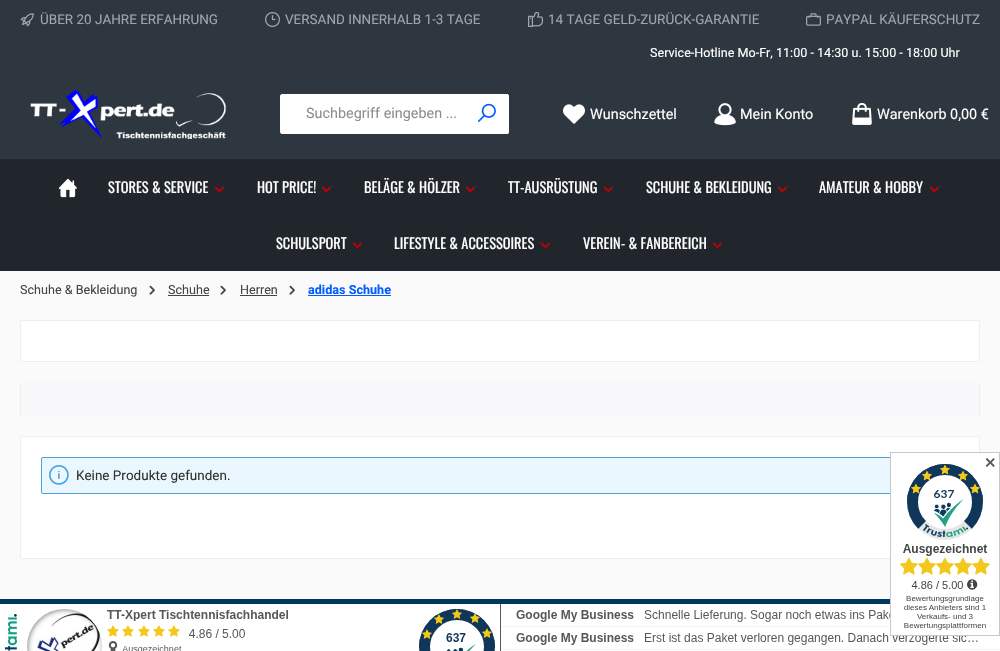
#include "include/core/SkBlurTypes.h"
#include "include/core/SkCanvas.h"
#include "include/core/SkData.h"
#include "include/core/SkFont.h"
#include "include/core/SkFontMgr.h"
#include "include/core/SkImage.h"
#include "include/core/SkMaskFilter.h"
#include "include/core/SkPaint.h"
#include "include/core/SkPathBuilder.h"
#include "include/core/SkTextBlob.h"
#include "include/effects/SkDashPathEffect.h"
#include "include/effects/SkGradientShader.h"
#include "include/utils/SkParsePath.h"

extern sk_sp<SkFontMgr> fontMgr;

static SkFont font(const char* family, int weight, float size, bool italic = false) {
    SkFontStyle style(weight, SkFontStyle::kNormal_Width,
        italic ? SkFontStyle::kItalic_Slant : SkFontStyle::kUpright_Slant);
    SkFont result(fontMgr->matchFamilyStyle(family, style), size);
    result.setSubpixel(true);
    return result;
}

static void drawLabel(SkCanvas* canvas, const char* s, float x, float y, const SkFont& font, SkColor color) {
    SkPaint ink(SkColor4f::FromColor(color));
    ink.setAntiAlias(true);
    canvas->drawString(s, x, y, font, ink);
}

static void fillRect(SkCanvas* canvas, float x, float y, float w, float h, SkColor color) {
    SkPaint ink(SkColor4f::FromColor(color));
    ink.setAntiAlias(true);
    canvas->drawRect(SkRect::MakeXYWH(x, y, w, h), ink);
}

static void drawPhoto(SkCanvas* canvas, const char* path, float x, float y, float w, float h) {
    auto image = SkImages::DeferredFromEncodedData(SkData::MakeFromFileName(path));
    canvas->drawImageRect(image, SkRect::MakeXYWH(x, y, w, h), SkSamplingOptions());
}

static SkPath parsePath(const char* data, bool evenOdd = false) {
    SkPath result = *SkParsePath::FromSVGString(data);
    if (evenOdd) result.setFillType(SkPathFillType::kEvenOdd);
    return result;
}

void draw(SkCanvas* canvas) {
    SkPaint paint;
    paint.setAntiAlias(true);
    canvas->clear(0xFFFAFAFA);
    fillRect(canvas, 0, 0, 1000, 159, 0xFF2E3740);
    drawPhoto(canvas, "assets/img1.png", 20, 13, 14, 14);
    SkFont font1 = font("Roboto", 400, 13.5f);
    drawLabel(canvas, "ÜBER 20 JAHRE ERFAHRUNG", 40, 24, font1, 0xFF9FA5AB);
    drawPhoto(canvas, "assets/img2.png", 265, 12, 15, 15);
    drawLabel(canvas, "VERSAND INNERHALB 1-3 TAGE", 285, 24, font1, 0xFF9FA5AB);
    drawPhoto(canvas, "assets/img3.png", 528, 12, 15, 15);
    drawLabel(canvas, "14 TAGE GELD-ZURÜCK-GARANTIE", 548, 24, font1, 0xFF9FA5AB);
    drawPhoto(canvas, "assets/img4.png", 806, 13, 15, 13);
    drawLabel(canvas, "PAYPAL KÄUFERSCHUTZ", 826, 24, font1, 0xFF9FA5AB);
    SkFont font2 = font("Roboto", 400, 12.6f);
    drawLabel(canvas, "Service-Hotline Mo-Fr, 11:00 - 14:30 u. 15:00 - 18:00 Uhr", 650, 57, font2, 0xFFFFFFFF);
    drawPhoto(canvas, "assets/img5.png", 30, 89, 197, 50);
    paint.setColor(0xFFFFFFFF);
    canvas->drawPath(parsePath("M282 94.5H465.5V133.5H282C281 133.5 280.5 133 280.5 132V96C280.5 95 281 94.5 282 94.5Z"), paint);
    paint.setStroke(true);
    paint.setStrokeWidth(1);
    canvas->drawPath(parsePath("M282 94.5H465.5V133.5H282C281 133.5 280.5 133 280.5 132V96C280.5 95 281 94.5 282 94.5Z"), paint);
    SkFont font3 = font("Roboto", 400, 14.4f);
    drawLabel(canvas, "Suchbegriff eingeben ...", 306, 118, font3, 0xFF8E8E8E);
    paint.setStroke(false);
    canvas->drawPath(parsePath("M465 94H507C508 94 509 95 509 96V132C509 133 508 134 507 134H465Z"), paint);
    fillRect(canvas, 507, 94, 1, 1, 0xFFFFFFFF);
    fillRect(canvas, 508, 95, 1, 38, 0xFFFFFFFF);
    fillRect(canvas, 507, 133, 1, 1, 0xFFFFFFFF);
    drawPhoto(canvas, "assets/img6.png", 478, 103, 18, 19);
    drawPhoto(canvas, "assets/img7.png", 563, 104, 22, 20);
    drawLabel(canvas, "Wunschzettel", 590, 119, font3, 0xFFFFFFFF);
    drawPhoto(canvas, "assets/img8.png", 714, 103, 22, 23);
    drawLabel(canvas, "Mein Konto", 740, 119, font3, 0xFFFFFFFF);
    drawPhoto(canvas, "assets/img9.png", 852, 103, 20, 22);
    drawLabel(canvas, "Warenkorb 0,00 €", 877, 119, font3, 0xFFFFFFFF);
    fillRect(canvas, 0, 159, 1000, 112, 0xFF21262C);
    drawPhoto(canvas, "assets/img10.png", 58, 178, 19, 20);
    SkFont font4 = font("Oswald", 400, 14.4f);
    drawLabel(canvas, "STORES & SERVICE", 108, 193, font4, 0xFFFFFFFF);
    drawPhoto(canvas, "assets/img11.png", 214, 186, 10, 7);
    drawLabel(canvas, "HOT PRICE!", 257, 193, font4, 0xFFFFFFFF);
    drawPhoto(canvas, "assets/img11.png", 321, 186, 10, 7);
    drawLabel(canvas, "BELÄGE & HÖLZER", 364, 193, font4, 0xFFFFFFFF);
    drawPhoto(canvas, "assets/img11.png", 465, 186, 10, 7);
    drawLabel(canvas, "TT-AUSRÜSTUNG", 508, 193, font4, 0xFFFFFFFF);
    drawPhoto(canvas, "assets/img11.png", 603, 186, 10, 7);
    drawLabel(canvas, "SCHUHE & BEKLEIDUNG", 646, 193, font4, 0xFFFFFFFF);
    drawPhoto(canvas, "assets/img11.png", 777, 186, 10, 7);
    drawLabel(canvas, "AMATEUR & HOBBY", 819, 193, font4, 0xFFFFFFFF);
    drawPhoto(canvas, "assets/img11.png", 929, 186, 10, 7);
    drawLabel(canvas, "SCHULSPORT", 276, 249, font4, 0xFFFFFFFF);
    drawPhoto(canvas, "assets/img11.png", 352, 242, 10, 7);
    drawLabel(canvas, "LIFESTYLE & ACCESSOIRES", 394, 249, font4, 0xFFFFFFFF);
    drawPhoto(canvas, "assets/img11.png", 540, 242, 10, 7);
    drawLabel(canvas, "VEREIN- & FANBEREICH", 583, 249, font4, 0xFFFFFFFF);
    drawPhoto(canvas, "assets/img11.png", 712, 242, 10, 7);
    drawLabel(canvas, "Schuhe & Bekleidung", 20, 294, font2, 0xFF444444);
    drawPhoto(canvas, "assets/img12.png", 149, 285, 6, 10);
    drawLabel(canvas, "Schuhe", 168, 294, font2, 0xFF444444);
    fillRect(canvas, 168, 295, 41, 1, 0xFF444444);
    drawPhoto(canvas, "assets/img12.png", 220, 285, 6, 10);
    drawLabel(canvas, "Herren", 240, 294, font2, 0xFF444444);
    fillRect(canvas, 240, 295, 37, 1, 0xFF444444);
    drawPhoto(canvas, "assets/img12.png", 289, 285, 6, 10);
    SkFont font5 = font("Roboto", 700, 12.6f);
    drawLabel(canvas, "adidas Schuhe", 308, 294, font5, 0xFF005CFF);
    fillRect(canvas, 308, 295, 83, 1, 0xFF005CFF);
    canvas->drawRoundRect(SkRect::MakeXYWH(20.5f, 320.5f, 959, 41), 1.5f, 1.5f, paint);
    paint.setStroke(true);
    paint.setColor(0xFFEEEEEE);
    canvas->drawRoundRect(SkRect::MakeXYWH(20.5f, 320.5f, 959, 41), 1.5f, 1.5f, paint);
    canvas->drawRoundRect(SkRect::MakeXYWH(20.5f, 382.5f, 959, 33), 1.5f, 1.5f, paint);
    fillRect(canvas, 21, 382, 958, 34, 0xFFF8F8FA);
    paint.setStroke(false);
    paint.setColor(0xFFFFFFFF);
    canvas->drawRoundRect(SkRect::MakeXYWH(20.5f, 436.5f, 959, 122), 1.5f, 1.5f, paint);
    paint.setStroke(true);
    paint.setColor(0xFFEEEEEE);
    canvas->drawRoundRect(SkRect::MakeXYWH(20.5f, 436.5f, 959, 122), 1.5f, 1.5f, paint);
    paint.setStroke(false);
    paint.setColor(0xFFEAF7FF);
    canvas->drawRoundRect(SkRect::MakeXYWH(41.5f, 457.5f, 917, 36), 1.5f, 1.5f, paint);
    paint.setStroke(true);
    paint.setColor(0xFF4AA3DF);
    canvas->drawRoundRect(SkRect::MakeXYWH(41.5f, 457.5f, 917, 36), 1.5f, 1.5f, paint);
    drawPhoto(canvas, "assets/img13.png", 49, 465, 20, 20);
    drawLabel(canvas, "Keine Produkte gefunden.", 76, 480, font1, 0xFF333333);
    drawPhoto(canvas, "assets/img15.png", 0, 599, 1000, 52);
    drawPhoto(canvas, "assets/img14.png", 890, 452, 110, 184);
    SkFont font6 = font("DejaVu Sans", 700, 14.4f);
    drawLabel(canvas, "✕", 984, 468, font6, 0xFF595959);
}
